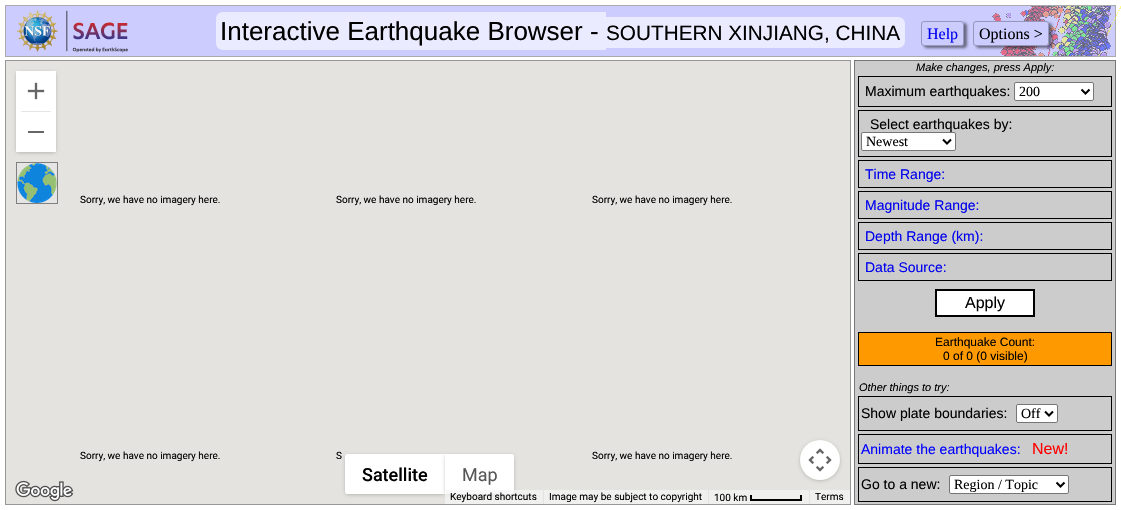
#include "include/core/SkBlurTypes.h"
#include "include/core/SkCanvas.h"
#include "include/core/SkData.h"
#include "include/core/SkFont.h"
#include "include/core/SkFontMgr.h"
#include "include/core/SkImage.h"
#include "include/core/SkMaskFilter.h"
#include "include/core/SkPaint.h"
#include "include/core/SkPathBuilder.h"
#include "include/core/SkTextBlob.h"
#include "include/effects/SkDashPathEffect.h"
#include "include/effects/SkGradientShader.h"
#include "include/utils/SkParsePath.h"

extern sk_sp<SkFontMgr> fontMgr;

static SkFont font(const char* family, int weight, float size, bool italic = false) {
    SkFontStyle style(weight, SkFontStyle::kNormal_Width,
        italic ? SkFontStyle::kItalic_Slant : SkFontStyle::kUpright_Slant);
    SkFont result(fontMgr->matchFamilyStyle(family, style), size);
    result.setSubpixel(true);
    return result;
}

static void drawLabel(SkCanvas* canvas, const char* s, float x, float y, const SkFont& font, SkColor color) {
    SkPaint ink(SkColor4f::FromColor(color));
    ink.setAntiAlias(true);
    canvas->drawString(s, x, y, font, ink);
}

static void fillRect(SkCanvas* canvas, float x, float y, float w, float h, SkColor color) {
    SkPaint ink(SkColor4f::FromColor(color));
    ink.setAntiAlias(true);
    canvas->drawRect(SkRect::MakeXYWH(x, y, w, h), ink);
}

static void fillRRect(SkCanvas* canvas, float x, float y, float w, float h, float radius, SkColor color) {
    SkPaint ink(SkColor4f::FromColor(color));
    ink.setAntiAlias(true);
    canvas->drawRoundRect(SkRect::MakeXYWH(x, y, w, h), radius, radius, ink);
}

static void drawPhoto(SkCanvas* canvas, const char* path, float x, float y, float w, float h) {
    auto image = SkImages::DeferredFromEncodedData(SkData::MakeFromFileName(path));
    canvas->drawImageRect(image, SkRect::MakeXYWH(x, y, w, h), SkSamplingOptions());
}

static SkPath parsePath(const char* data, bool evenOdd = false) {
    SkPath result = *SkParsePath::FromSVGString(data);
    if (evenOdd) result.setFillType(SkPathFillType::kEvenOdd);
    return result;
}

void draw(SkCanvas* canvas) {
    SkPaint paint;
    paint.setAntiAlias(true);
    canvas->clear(0xFFFFFFFF);
    paint.setColor(0xFFCCCCFF);
    canvas->drawRect(SkRect::MakeXYWH(5.5f, 5.5f, 1110, 51), paint);
    paint.setStroke(true);
    paint.setStrokeWidth(1);
    paint.setColor(0xFFAAAAAA);
    canvas->drawRect(SkRect::MakeXYWH(5.5f, 5.5f, 1110, 51), paint);
    drawPhoto(canvas, "assets/img1.png", 17, 10, 111, 43);
    paint.setStroke(false);
    paint.setColor(0xFFEBEBFF);
    canvas->drawPath(parsePath("M223 12H606V50H223C219 50 216 47 216 43V19C216 15 219 12 223 12Z"), paint);
    SkFont font1 = font("Liberation Sans", 400, 26);
    drawLabel(canvas, "Interactive Earthquake Browser -", 220, 40, font1, 0xFF000000);
    canvas->drawPath(parsePath("M606 17H898C902 17 905 20 905 24V41C905 45 902 48 898 48H606Z"), paint);
    SkFont font2 = font("Liberation Sans", 400, 20.75f);
    drawLabel(canvas, "SOUTHERN XINJIANG, CHINA", 606, 40, font2, 0xFF000000);
    paint.setColor(0x80000000);
    paint.setMaskFilter(SkMaskFilter::MakeBlur(kNormal_SkBlurStyle, 1.5f));
    canvas->drawRoundRect(SkRect::MakeXYWH(924, 23, 43, 25), 3, 3, paint);
    paint.setMaskFilter(nullptr);
    fillRRect(canvas, 921, 21, 43, 25, 3, 0xFFCCCCFF);
    paint.setStroke(true);
    paint.setColor(0x42000000);
    canvas->drawRoundRect(SkRect::MakeXYWH(921.5f, 21.5f, 42, 24), 2.5f, 2.5f, paint);
    SkFont font3 = font("Liberation Serif", 400, 16);
    drawLabel(canvas, "Help", 927, 39, font3, 0xFF0000EE);
    drawPhoto(canvas, "assets/img2.png", 992, 6, 129, 50);
    paint.setStroke(false);
    paint.setColor(0x80000000);
    paint.setMaskFilter(SkMaskFilter::MakeBlur(kNormal_SkBlurStyle, 1.5f));
    canvas->drawRoundRect(SkRect::MakeXYWH(976, 23, 76, 25), 3, 3, paint);
    paint.setMaskFilter(nullptr);
    fillRRect(canvas, 973, 21, 76, 25, 3, 0xFFCCCCFF);
    paint.setStroke(true);
    paint.setColor(0x42000000);
    canvas->drawRoundRect(SkRect::MakeXYWH(973.5f, 21.5f, 75, 24), 2.5f, 2.5f, paint);
    drawLabel(canvas, "Options >", 979, 39, font3, 0xFF000000);
    paint.setColor(0xFF979797);
    canvas->drawRect(SkRect::MakeXYWH(5.5f, 60.5f, 845, 444), paint);
    fillRect(canvas, 6, 61, 844, 443, 0xFFE5E3DF);
    paint.setStroke(false);
    paint.setColor(0x4D000000);
    paint.setMaskFilter(SkMaskFilter::MakeBlur(kNormal_SkBlurStyle, 2));
    canvas->drawRoundRect(SkRect::MakeXYWH(17, 73, 38, 79), 1, 1, paint);
    paint.setMaskFilter(nullptr);
    fillRect(canvas, 16, 71, 40, 81, 0xFFFFFFFF);
    drawPhoto(canvas, "assets/img3.png", 27, 82, 18, 18);
    fillRect(canvas, 21, 111, 30, 1, 0xFFE6E6E6);
    fillRect(canvas, 28, 131, 16, 2, 0xFF666666);
    fillRect(canvas, 16, 162, 42, 1, 0xFF808080);
    fillRect(canvas, 57, 162, 1, 42, 0xFF808080);
    fillRect(canvas, 16, 203, 42, 1, 0xFF808080);
    fillRect(canvas, 16, 162, 1, 42, 0xFF808080);
    fillRect(canvas, 17, 163, 40, 40, 0xFFE5E5E5);
    drawPhoto(canvas, "assets/img4.png", 17, 163, 40, 40);
    SkFont font4 = font("Roboto", 400, 10);
    drawLabel(canvas, "Sorry, we have no imagery here.", 80, 203, font4, 0xFF000000);
    drawLabel(canvas, "Sorry, we have no imagery here.", 336, 203, font4, 0xFF000000);
    drawLabel(canvas, "Sorry, we have no imagery here.", 592, 203, font4, 0xFF000000);
    drawLabel(canvas, "Sorry, we have no imagery here.", 80, 459, font4, 0xFF000000);
    drawLabel(canvas, "S", 336, 459, font4, 0xFF000000);
    drawLabel(canvas, "Sorry, we have no imagery here.", 592, 459, font4, 0xFF000000);
    paint.setMaskFilter(SkMaskFilter::MakeBlur(kNormal_SkBlurStyle, 2));
    canvas->drawRoundRect(SkRect::MakeXYWH(801, 442, 38, 38), 19, 19, paint);
    paint.setMaskFilter(nullptr);
    paint.setColor(0xFFFFFFFF);
    canvas->drawCircle(820, 460, 20, paint);
    drawPhoto(canvas, "assets/img5.png", 808, 448, 24, 24);
    paint.setColor(0x4D000000);
    paint.setMaskFilter(SkMaskFilter::MakeBlur(kNormal_SkBlurStyle, 2));
    canvas->drawRoundRect(SkRect::MakeXYWH(346, 456, 98, 38), 1, 1, paint);
    paint.setMaskFilter(nullptr);
    paint.setColor(0xFFFFFFFF);
    canvas->drawPath(parsePath("M347 454H445V494H347C346 494 345 493 345 492V456C345 455 346 454 347 454Z"), paint);
    SkFont font5 = font("Roboto", 500, 18);
    drawLabel(canvas, "Satellite", 362, 481, font5, 0xFF000000);
    paint.setColor(0x4D000000);
    paint.setMaskFilter(SkMaskFilter::MakeBlur(kNormal_SkBlurStyle, 2));
    canvas->drawRoundRect(SkRect::MakeXYWH(446, 456, 67, 38), 1, 1, paint);
    paint.setMaskFilter(nullptr);
    paint.setColor(0xFFFFFFFF);
    canvas->drawPath(parsePath("M445 454H512C513 454 514 455 514 456V492C514 493 513 494 512 494H445Z"), paint);
    SkFont font6 = font("Roboto", 400, 18);
    drawLabel(canvas, "Map", 462, 481, font6, 0xFF565656);
    drawPhoto(canvas, "assets/img6.png", 15, 480, 59, 22);
    fillRect(canvas, 445, 490, 98, 14, 0xB3F5F5F5);
    drawLabel(canvas, "Keyboard shortcuts", 450, 500, font4, 0xFF000000);
    fillRect(canvas, 544, 490, 164, 14, 0xFFF0F0EE);
    drawLabel(canvas, "Image may be subject to copyright", 549, 500, font4, 0xFF000000);
    fillRect(canvas, 709, 490, 100, 14, 0xFFF0F0EE);
    drawLabel(canvas, "100 km", 714, 501, font4, 0xFF000000);
    fillRect(canvas, 750, 499, 52, 2, 0xFF000000);
    fillRect(canvas, 750, 495, 2, 6, 0xFF000000);
    fillRect(canvas, 800, 495, 2, 6, 0xFF000000);
    fillRect(canvas, 810, 490, 40, 14, 0xFFF0F0EE);
    drawLabel(canvas, "Terms", 815, 500, font4, 0xFF000000);
    paint.setColor(0xFFCCCCCC);
    canvas->drawRect(SkRect::MakeXYWH(854.5f, 60.5f, 261, 444), paint);
    paint.setStroke(true);
    paint.setColor(0xFF777777);
    canvas->drawRect(SkRect::MakeXYWH(854.5f, 60.5f, 261, 444), paint);
    SkFont font7 = font("Liberation Sans", 400, 11, true);
    drawLabel(canvas, "Make changes, press Apply:", 916, 71, font7, 0xFF000000);
    paint.setColor(0xFF000000);
    canvas->drawRect(SkRect::MakeXYWH(858.5f, 76.5f, 253, 30), paint);
    SkFont font8 = font("Liberation Sans", 400, 14);
    drawLabel(canvas, "Maximum earthquakes:", 865, 96, font8, 0xFF000000);
    paint.setStroke(false);
    paint.setColor(0xFFFFFFFF);
    canvas->drawRoundRect(SkRect::MakeXYWH(1014.5f, 82.5f, 79, 18), 1.5f, 1.5f, paint);
    paint.setStroke(true);
    paint.setColor(0xFF767676);
    canvas->drawRoundRect(SkRect::MakeXYWH(1014.5f, 82.5f, 79, 18), 1.5f, 1.5f, paint);
    paint.setStrokeWidth(2);
    paint.setColor(0xFF000000);
    canvas->drawPath(parsePath("M1081.5 89.5L1085.5 93.5L1089.5 89.5"), paint);
    SkFont font9 = font("Liberation Serif", 400, 14);
    drawLabel(canvas, "200", 1019, 96, font9, 0xFF000000);
    paint.setStrokeWidth(1);
    canvas->drawRect(SkRect::MakeXYWH(858.5f, 110.5f, 253, 46), paint);
    drawLabel(canvas, "Select earthquakes by:", 870, 129, font8, 0xFF000000);
    paint.setStroke(false);
    paint.setColor(0xFFFFFFFF);
    canvas->drawRoundRect(SkRect::MakeXYWH(861.5f, 132.5f, 94, 18), 1.5f, 1.5f, paint);
    paint.setStroke(true);
    paint.setColor(0xFF767676);
    canvas->drawRoundRect(SkRect::MakeXYWH(861.5f, 132.5f, 94, 18), 1.5f, 1.5f, paint);
    paint.setStrokeWidth(2);
    paint.setColor(0xFF000000);
    canvas->drawPath(parsePath("M943 139.5L947 143.5L951 139.5"), paint);
    drawLabel(canvas, "Newest", 866, 146, font9, 0xFF000000);
    paint.setStrokeWidth(1);
    canvas->drawRect(SkRect::MakeXYWH(858.5f, 160.5f, 253, 27), paint);
    drawLabel(canvas, "Time Range:", 865, 179, font8, 0xFF0000EE);
    canvas->drawRect(SkRect::MakeXYWH(858.5f, 191.5f, 253, 27), paint);
    drawLabel(canvas, "Magnitude Range:", 865, 210, font8, 0xFF0000EE);
    canvas->drawRect(SkRect::MakeXYWH(858.5f, 222.5f, 253, 27), paint);
    drawLabel(canvas, "Depth Range (km):", 865, 241, font8, 0xFF0000EE);
    canvas->drawRect(SkRect::MakeXYWH(858.5f, 253.5f, 253, 27), paint);
    drawLabel(canvas, "Data Source:", 865, 272, font8, 0xFF0000EE);
    paint.setStroke(false);
    paint.setColor(0xFFFFFFFF);
    canvas->drawRect(SkRect::MakeXYWH(936, 290, 98, 26), paint);
    paint.setStroke(true);
    paint.setStrokeWidth(2);
    paint.setColor(0xFF000000);
    canvas->drawRect(SkRect::MakeXYWH(936, 290, 98, 26), paint);
    SkFont font10 = font("Liberation Sans", 400, 16);
    drawLabel(canvas, "Apply", 965, 308, font10, 0xFF000000);
    paint.setStroke(false);
    paint.setColor(0xFFFF9900);
    canvas->drawRect(SkRect::MakeXYWH(858.5f, 332.5f, 253, 33), paint);
    paint.setStroke(true);
    paint.setStrokeWidth(1);
    paint.setColor(0xFF000000);
    canvas->drawRect(SkRect::MakeXYWH(858.5f, 332.5f, 253, 33), paint);
    SkFont font11 = font("Liberation Sans", 400, 12);
    drawLabel(canvas, "Earthquake Count:", 935, 346, font11, 0xFF000000);
    drawLabel(canvas, "0 of 0 (0 visible)", 943, 360, font11, 0xFF000000);
    drawLabel(canvas, "Other things to try:", 859, 391, font7, 0xFF000000);
    canvas->drawRect(SkRect::MakeXYWH(858.5f, 396.5f, 253, 34), paint);
    drawLabel(canvas, "Show plate boundaries:", 861, 418, font8, 0xFF000000);
    paint.setStroke(false);
    paint.setColor(0xFFFFFFFF);
    canvas->drawRoundRect(SkRect::MakeXYWH(1016.5f, 404.5f, 41, 18), 1.5f, 1.5f, paint);
    paint.setStroke(true);
    paint.setColor(0xFF767676);
    canvas->drawRoundRect(SkRect::MakeXYWH(1016.5f, 404.5f, 41, 18), 1.5f, 1.5f, paint);
    paint.setStrokeWidth(2);
    paint.setColor(0xFF000000);
    canvas->drawPath(parsePath("M1045 411.5L1049 415.5L1053 411.5"), paint);
    drawLabel(canvas, "Off", 1021, 418, font9, 0xFF000000);
    paint.setStrokeWidth(1);
    canvas->drawRect(SkRect::MakeXYWH(858.5f, 434.5f, 253, 29), paint);
    drawLabel(canvas, "Animate the earthquakes:", 861, 454, font8, 0xFF0000FF);
    drawLabel(canvas, "New!", 1032, 454, font10, 0xFFFF0000);
    canvas->drawRect(SkRect::MakeXYWH(858.5f, 467.5f, 253, 34), paint);
    drawLabel(canvas, "Go to a new:", 861, 489, font8, 0xFF000000);
    paint.setStroke(false);
    paint.setColor(0xFFFFFFFF);
    canvas->drawRoundRect(SkRect::MakeXYWH(949.5f, 475.5f, 119, 18), 1.5f, 1.5f, paint);
    paint.setStroke(true);
    paint.setColor(0xFF767676);
    canvas->drawRoundRect(SkRect::MakeXYWH(949.5f, 475.5f, 119, 18), 1.5f, 1.5f, paint);
    paint.setStrokeWidth(2);
    paint.setColor(0xFF000000);
    canvas->drawPath(parsePath("M1056.5 482.5L1060.5 486.5L1064.5 482.5"), paint);
    drawLabel(canvas, "Region / Topic", 954, 489, font9, 0xFF000000);
}
